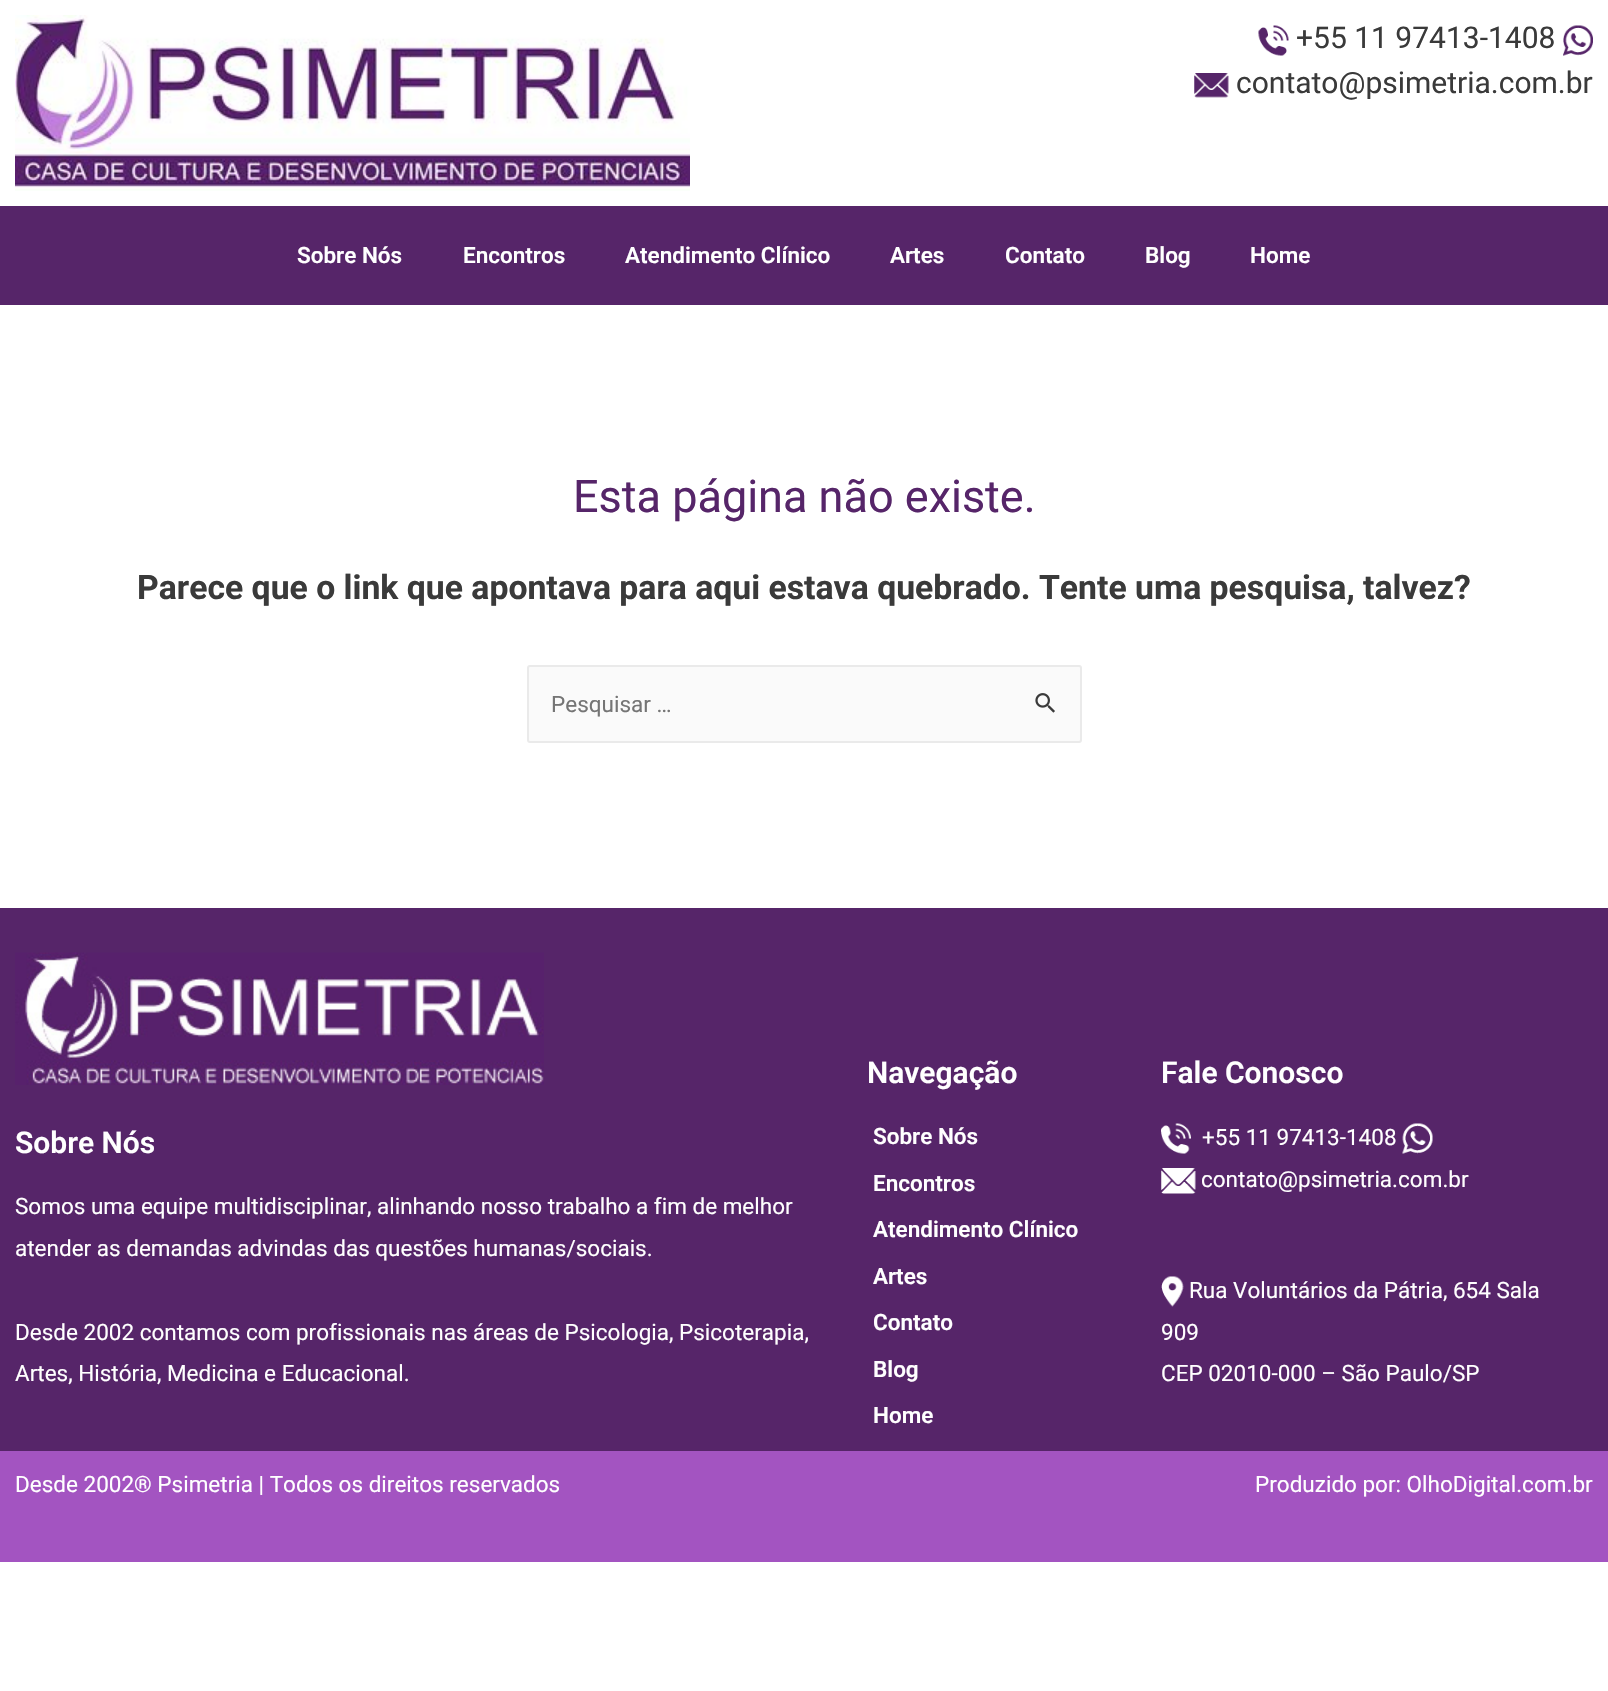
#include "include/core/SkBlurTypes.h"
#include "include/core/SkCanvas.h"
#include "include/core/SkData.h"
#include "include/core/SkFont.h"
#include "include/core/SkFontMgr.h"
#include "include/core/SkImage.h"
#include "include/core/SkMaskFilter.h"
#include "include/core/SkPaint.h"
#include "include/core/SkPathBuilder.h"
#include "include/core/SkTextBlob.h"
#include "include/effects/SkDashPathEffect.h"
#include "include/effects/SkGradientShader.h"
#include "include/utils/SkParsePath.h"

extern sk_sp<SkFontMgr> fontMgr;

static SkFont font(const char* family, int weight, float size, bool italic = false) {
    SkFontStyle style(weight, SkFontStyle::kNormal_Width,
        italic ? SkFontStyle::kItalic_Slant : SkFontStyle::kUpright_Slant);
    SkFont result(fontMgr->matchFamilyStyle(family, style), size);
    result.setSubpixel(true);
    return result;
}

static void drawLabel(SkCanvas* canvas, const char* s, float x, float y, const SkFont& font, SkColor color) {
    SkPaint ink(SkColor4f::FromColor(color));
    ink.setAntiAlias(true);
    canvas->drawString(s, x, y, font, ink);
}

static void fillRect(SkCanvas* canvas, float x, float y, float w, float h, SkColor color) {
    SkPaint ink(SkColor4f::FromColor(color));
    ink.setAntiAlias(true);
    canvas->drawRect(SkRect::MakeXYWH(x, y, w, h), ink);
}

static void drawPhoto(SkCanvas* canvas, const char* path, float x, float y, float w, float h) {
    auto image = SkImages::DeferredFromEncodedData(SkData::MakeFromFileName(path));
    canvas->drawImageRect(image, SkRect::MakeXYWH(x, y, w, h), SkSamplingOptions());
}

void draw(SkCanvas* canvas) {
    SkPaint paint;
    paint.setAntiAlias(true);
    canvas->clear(0xFFFFFFFF);
    drawPhoto(canvas, "assets/img1.png", 15, 15, 675, 176);
    drawPhoto(canvas, "assets/img2.png", 1258, 25, 31, 31);
    SkFont font1 = font("Roboto", 400, 30);
    drawLabel(canvas, "+55 11 97413-1408", 1296, 48, font1, 0xFF3A3A3A);
    drawPhoto(canvas, "assets/img3.png", 1563, 25, 30, 31);
    drawPhoto(canvas, "assets/img4.png", 1194, 73, 35, 25);
    drawLabel(canvas, "contato@psimetria.com.br", 1236, 93, font1, 0xFF3A3A3A);
    fillRect(canvas, 0, 206, 1608, 99, 0xFF562569);
    SkFont font2 = font("Roboto", 600, 22.5f);
    drawLabel(canvas, "Sobre Nós", 297, 263, font2, 0xFFFFFFFF);
    drawLabel(canvas, "Encontros", 463, 263, font2, 0xFFFFFFFF);
    drawLabel(canvas, "Atendimento Clínico", 625, 263, font2, 0xFFFFFFFF);
    drawLabel(canvas, "Artes", 890, 263, font2, 0xFFFFFFFF);
    drawLabel(canvas, "Contato", 1005, 263, font2, 0xFFFFFFFF);
    drawLabel(canvas, "Blog", 1145, 263, font2, 0xFFFFFFFF);
    drawLabel(canvas, "Home", 1250, 263, font2, 0xFFFFFFFF);
    SkFont font3 = font("Roboto", 400, 45);
    drawLabel(canvas, "Esta página não existe.", 573, 512, font3, 0xFF562569);
    SkFont font4 = font("Roboto", 700, 33.75f);
    drawLabel(canvas, "Parece que o link que apontava para aqui estava quebrado. Tente uma pesquisa, talvez?", 137, 599, font4, 0xFF3A3A3A);
    paint.setColor(0xFFFAFAFA);
    canvas->drawRoundRect(SkRect::MakeXYWH(528, 666, 553, 76), 2, 2, paint);
    paint.setStroke(true);
    paint.setStrokeWidth(2);
    paint.setColor(0xFFEAEAEA);
    canvas->drawRoundRect(SkRect::MakeXYWH(528, 666, 553, 76), 2, 2, paint);
    SkFont font5 = font("Roboto", 400, 22.5f);
    drawLabel(canvas, "Pesquisar …", 551, 712, font5, 0xFF757575);
    drawPhoto(canvas, "assets/img5.png", 1035, 693, 20, 20);
    fillRect(canvas, 0, 908, 1608, 543, 0xFF562569);
    drawPhoto(canvas, "assets/img6.png", 15, 952, 529, 133);
    SkFont font6 = font("Roboto", 600, 30);
    drawLabel(canvas, "Sobre Nós", 15, 1153, font6, 0xFFFFFFFF);
    drawLabel(canvas, "Somos uma equipe multidisciplinar, alinhando nosso trabalho a fim de melhor", 15, 1214, font5, 0xFFFFFFFF);
    drawLabel(canvas, "atender as demandas advindas das questões humanas/sociais.", 15, 1256, font5, 0xFFFFFFFF);
    drawLabel(canvas, "Desde 2002 contamos com profissionais nas áreas de Psicologia, Psicoterapia,", 15, 1340, font5, 0xFFFFFFFF);
    drawLabel(canvas, "Artes, História, Medicina e Educacional.", 15, 1381, font5, 0xFFFFFFFF);
    drawLabel(canvas, "Navegação", 867, 1083, font6, 0xFFFFFFFF);
    drawLabel(canvas, "Sobre Nós", 873, 1144, font2, 0xFFFFFFFF);
    drawLabel(canvas, "Encontros", 873, 1191, font2, 0xFFFFFFFF);
    drawLabel(canvas, "Atendimento Clínico", 873, 1237, font2, 0xFFFFFFFF);
    drawLabel(canvas, "Artes", 873, 1284, font2, 0xFFFFFFFF);
    drawLabel(canvas, "Contato", 873, 1330, font2, 0xFFFFFFFF);
    drawLabel(canvas, "Blog", 873, 1377, font2, 0xFFFFFFFF);
    drawLabel(canvas, "Home", 873, 1423, font2, 0xFFFFFFFF);
    drawLabel(canvas, "Fale Conosco", 1161, 1083, font6, 0xFFFFFFFF);
    drawPhoto(canvas, "assets/img7.png", 1161, 1123, 30, 31);
    drawLabel(canvas, "+55 11 97413-1408", 1202, 1145, font5, 0xFFFFFFFF);
    drawPhoto(canvas, "assets/img8.png", 1402, 1123, 31, 31);
    drawPhoto(canvas, "assets/img9.png", 1161, 1168, 35, 26);
    drawLabel(canvas, "contato@psimetria.com.br", 1201, 1187, font5, 0xFFFFFFFF);
    drawPhoto(canvas, "assets/img10.png", 1161, 1276, 23, 31);
    drawLabel(canvas, "Rua Voluntários da Pátria, 654 Sala", 1189, 1298, font5, 0xFFFFFFFF);
    drawLabel(canvas, "909", 1161, 1340, font5, 0xFFFFFFFF);
    drawLabel(canvas, "CEP 02010-000 – São Paulo/SP", 1161, 1381, font5, 0xFFFFFFFF);
    fillRect(canvas, 0, 1451, 1608, 111, 0xFFA354C1);
    drawLabel(canvas, "Desde 2002® Psimetria | Todos os direitos reservados", 15, 1492, font5, 0xFFFFFFFF);
    drawLabel(canvas, "Produzido por: OlhoDigital.com.br", 1255, 1492, font5, 0xFFFFFFFF);
}
